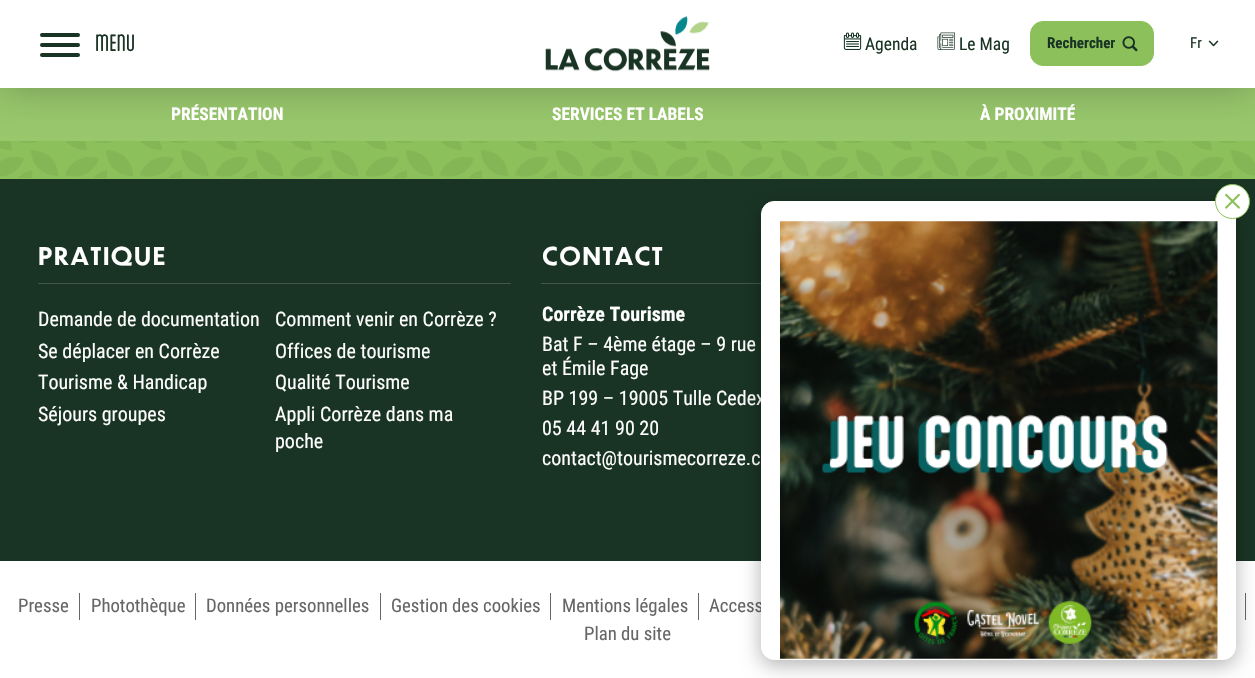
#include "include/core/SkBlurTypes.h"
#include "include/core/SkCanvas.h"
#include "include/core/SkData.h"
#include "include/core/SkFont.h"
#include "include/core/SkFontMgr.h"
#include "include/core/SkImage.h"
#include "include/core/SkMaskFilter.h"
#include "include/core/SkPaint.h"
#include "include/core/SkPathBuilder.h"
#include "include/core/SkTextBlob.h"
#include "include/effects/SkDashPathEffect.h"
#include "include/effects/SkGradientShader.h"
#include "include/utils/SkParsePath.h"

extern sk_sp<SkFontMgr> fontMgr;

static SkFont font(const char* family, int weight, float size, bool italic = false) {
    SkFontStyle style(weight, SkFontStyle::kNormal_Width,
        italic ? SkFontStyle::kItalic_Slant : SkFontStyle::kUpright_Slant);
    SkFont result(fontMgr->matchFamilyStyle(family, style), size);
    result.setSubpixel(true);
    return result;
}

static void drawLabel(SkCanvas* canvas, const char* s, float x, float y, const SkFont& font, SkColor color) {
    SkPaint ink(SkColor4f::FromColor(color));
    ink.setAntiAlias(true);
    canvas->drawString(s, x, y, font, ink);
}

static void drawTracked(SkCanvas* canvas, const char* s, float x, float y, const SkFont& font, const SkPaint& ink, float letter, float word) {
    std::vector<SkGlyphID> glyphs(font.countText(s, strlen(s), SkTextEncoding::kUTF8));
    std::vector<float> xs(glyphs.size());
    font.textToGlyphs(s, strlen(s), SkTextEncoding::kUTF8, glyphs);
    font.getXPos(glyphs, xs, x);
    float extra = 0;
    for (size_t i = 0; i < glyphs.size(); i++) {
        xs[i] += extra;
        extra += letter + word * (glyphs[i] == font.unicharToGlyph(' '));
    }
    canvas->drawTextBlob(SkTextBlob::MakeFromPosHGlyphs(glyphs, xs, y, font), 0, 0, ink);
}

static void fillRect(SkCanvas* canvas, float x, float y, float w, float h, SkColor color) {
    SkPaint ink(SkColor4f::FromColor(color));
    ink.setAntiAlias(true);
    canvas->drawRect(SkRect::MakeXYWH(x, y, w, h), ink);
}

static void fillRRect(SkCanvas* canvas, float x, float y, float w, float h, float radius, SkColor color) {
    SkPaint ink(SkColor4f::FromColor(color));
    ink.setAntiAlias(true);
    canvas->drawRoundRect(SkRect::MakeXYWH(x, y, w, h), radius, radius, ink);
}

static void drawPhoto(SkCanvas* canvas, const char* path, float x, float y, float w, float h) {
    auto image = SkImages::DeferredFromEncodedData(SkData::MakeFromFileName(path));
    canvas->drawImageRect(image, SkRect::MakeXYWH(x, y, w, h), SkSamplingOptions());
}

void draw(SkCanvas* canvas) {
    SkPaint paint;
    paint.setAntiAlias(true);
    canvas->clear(0xFF193424);
    fillRect(canvas, 0, 88, 1255, 53, 0xFF98C76C);
    fillRect(canvas, 0, 141, 1255, 38, 0xFF8BC05A);
    drawPhoto(canvas, "assets/img6.png", 0, 141, 1255, 37);
    paint.setColor(0x40000000);
    paint.setMaskFilter(SkMaskFilter::MakeBlur(kNormal_SkBlurStyle, 20));
    canvas->drawRect(SkRect::MakeXYWH(0, 0, 1255, 88), paint);
    paint.setMaskFilter(nullptr);
    fillRect(canvas, 0, 0, 1255, 88, 0xFFFFFFFF);
    fillRRect(canvas, 40, 33, 40, 4, 2, 0xFF193424);
    SkFont font1 = font("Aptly", 400, 20);
    drawLabel(canvas, "MENU", 95, 51, font1, 0xFF193424);
    fillRRect(canvas, 40, 43, 40, 4, 2, 0xFF193424);
    fillRRect(canvas, 40, 53, 40, 4, 2, 0xFF193424);
    drawPhoto(canvas, "assets/img1.png", 545, 16, 165, 56);
    drawPhoto(canvas, "assets/img2.png", 843, 32, 19, 18);
    SkFont font2 = font("Roboto Condensed", 400, 17.5f);
    drawLabel(canvas, "Agenda", 865, 50, font2, 0xFF193424);
    drawPhoto(canvas, "assets/img3.png", 937, 32, 18, 18);
    drawLabel(canvas, "Le Mag", 959, 50, font2, 0xFF193424);
    paint.setColor(0xFF8BC05A);
    canvas->drawRoundRect(SkRect::MakeXYWH(1030.5f, 21.5f, 123, 44), 12.5f, 12.5f, paint);
    paint.setStroke(true);
    paint.setStrokeWidth(1);
    canvas->drawRoundRect(SkRect::MakeXYWH(1030.5f, 21.5f, 123, 44), 12.5f, 12.5f, paint);
    SkFont font3 = font("Roboto Condensed", 700, 15);
    drawLabel(canvas, "Rechercher", 1047, 48, font3, 0xFF193424);
    drawPhoto(canvas, "assets/img4.png", 1122, 36, 16, 16);
    SkFont font4 = font("Roboto Condensed", 400, 15);
    drawLabel(canvas, "Fr", 1190, 48, font4, 0xFF193424);
    drawPhoto(canvas, "assets/img5.png", 1208, 40, 11, 7);
    SkFont font5 = font("Roboto Condensed", 700, 17.5f);
    drawLabel(canvas, "PRÉSENTATION", 171, 120, font5, 0xFFFFFFFF);
    drawLabel(canvas, "SERVICES ET LABELS", 552, 120, font5, 0xFFFFFFFF);
    drawLabel(canvas, "À PROXIMITÉ", 980, 120, font5, 0xFFFFFFFF);
    fillRect(canvas, 38, 283, 473, 1, 0xFF405749);
    SkFont font6 = font("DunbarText", 700, 24);
    paint.setStroke(false);
    paint.setColor(0xFFFFFFFF);
    drawTracked(canvas, "PRATIQUE", 38, 265, font6, paint, 1.25f, 0);
    SkFont font7 = font("Roboto Condensed", 400, 20);
    drawLabel(canvas, "Demande de documentation", 38, 326, font7, 0xFFFFFFFF);
    drawLabel(canvas, "Comment venir en Corrèze ?", 275, 326, font7, 0xFFFFFFFF);
    drawLabel(canvas, "Se déplacer en Corrèze", 38, 358, font7, 0xFFFFFFFF);
    drawLabel(canvas, "Offices de tourisme", 275, 358, font7, 0xFFFFFFFF);
    drawLabel(canvas, "Tourisme & Handicap", 38, 389, font7, 0xFFFFFFFF);
    drawLabel(canvas, "Qualité Tourisme", 275, 389, font7, 0xFFFFFFFF);
    drawLabel(canvas, "Séjours groupes", 38, 421, font7, 0xFFFFFFFF);
    drawLabel(canvas, "Appli Corrèze dans ma", 275, 421, font7, 0xFFFFFFFF);
    drawLabel(canvas, "poche", 275, 448, font7, 0xFFFFFFFF);
    fillRect(canvas, 541, 283, 220, 1, 0xFF405749);
    drawTracked(canvas, "CONTACT", 542, 265, font6, paint, 1.25f, 0);
    SkFont font8 = font("Roboto Condensed", 700, 20);
    drawLabel(canvas, "Corrèze Tourisme", 542, 321, font8, 0xFFFFFFFF);
    drawLabel(canvas, "Bat F – 4ème étage – 9 rue", 542, 351, font7, 0xFFFFFFFF);
    drawLabel(canvas, "et Émile Fage", 542, 375, font7, 0xFFFFFFFF);
    drawLabel(canvas, "BP 199 – 19005 Tulle Cedex", 542, 405, font7, 0xFFFFFFFF);
    drawLabel(canvas, "05 44 41 90 20", 542, 435, font7, 0xFFFFFFFF);
    drawLabel(canvas, "contact@tourismecorreze.c", 542, 465, font7, 0xFFFFFFFF);
    fillRect(canvas, 0, 561, 1255, 117, 0xFFFFFFFF);
    fillRect(canvas, 79, 593, 1, 27, 0xFF666666);
    SkFont font9 = font("Roboto Condensed", 400, 18.75f);
    drawLabel(canvas, "Presse", 18, 612, font9, 0xFF666666);
    fillRect(canvas, 195, 593, 1, 27, 0xFF666666);
    drawLabel(canvas, "Photothèque", 91, 612, font9, 0xFF666666);
    fillRect(canvas, 380, 593, 1, 27, 0xFF666666);
    drawLabel(canvas, "Données personnelles", 206, 612, font9, 0xFF666666);
    fillRect(canvas, 550, 593, 1, 27, 0xFF666666);
    drawLabel(canvas, "Gestion des cookies", 391, 612, font9, 0xFF666666);
    fillRect(canvas, 698, 593, 1, 27, 0xFF666666);
    drawLabel(canvas, "Mentions légales", 562, 612, font9, 0xFF666666);
    drawLabel(canvas, "Access", 709, 612, font9, 0xFF666666);
    fillRect(canvas, 1245, 593, 1, 27, 0xFF666666);
    drawLabel(canvas, "Plan du site", 584, 640, font9, 0xFF666666);
    paint.setColor(0x4D000000);
    paint.setMaskFilter(SkMaskFilter::MakeBlur(kNormal_SkBlurStyle, 10));
    canvas->drawRoundRect(SkRect::MakeXYWH(761, 206, 475, 459), 13, 13, paint);
    paint.setMaskFilter(nullptr);
    paint.setColor(0xFFFFFFFF);
    canvas->drawRoundRect(SkRect::MakeXYWH(761.5f, 201.5f, 474, 458), 12.5f, 12.5f, paint);
    paint.setStroke(true);
    canvas->drawRoundRect(SkRect::MakeXYWH(761.5f, 201.5f, 474, 458), 12.5f, 12.5f, paint);
    drawPhoto(canvas, "assets/img7.png", 780, 221, 438, 438);
    paint.setStroke(false);
    canvas->drawCircle(1232.5f, 201.5f, 17, paint);
    paint.setStroke(true);
    paint.setColor(0xFF8BC05A);
    canvas->drawCircle(1232.5f, 201.5f, 17, paint);
    drawPhoto(canvas, "assets/img8.png", 1225, 193, 15, 16);
}
